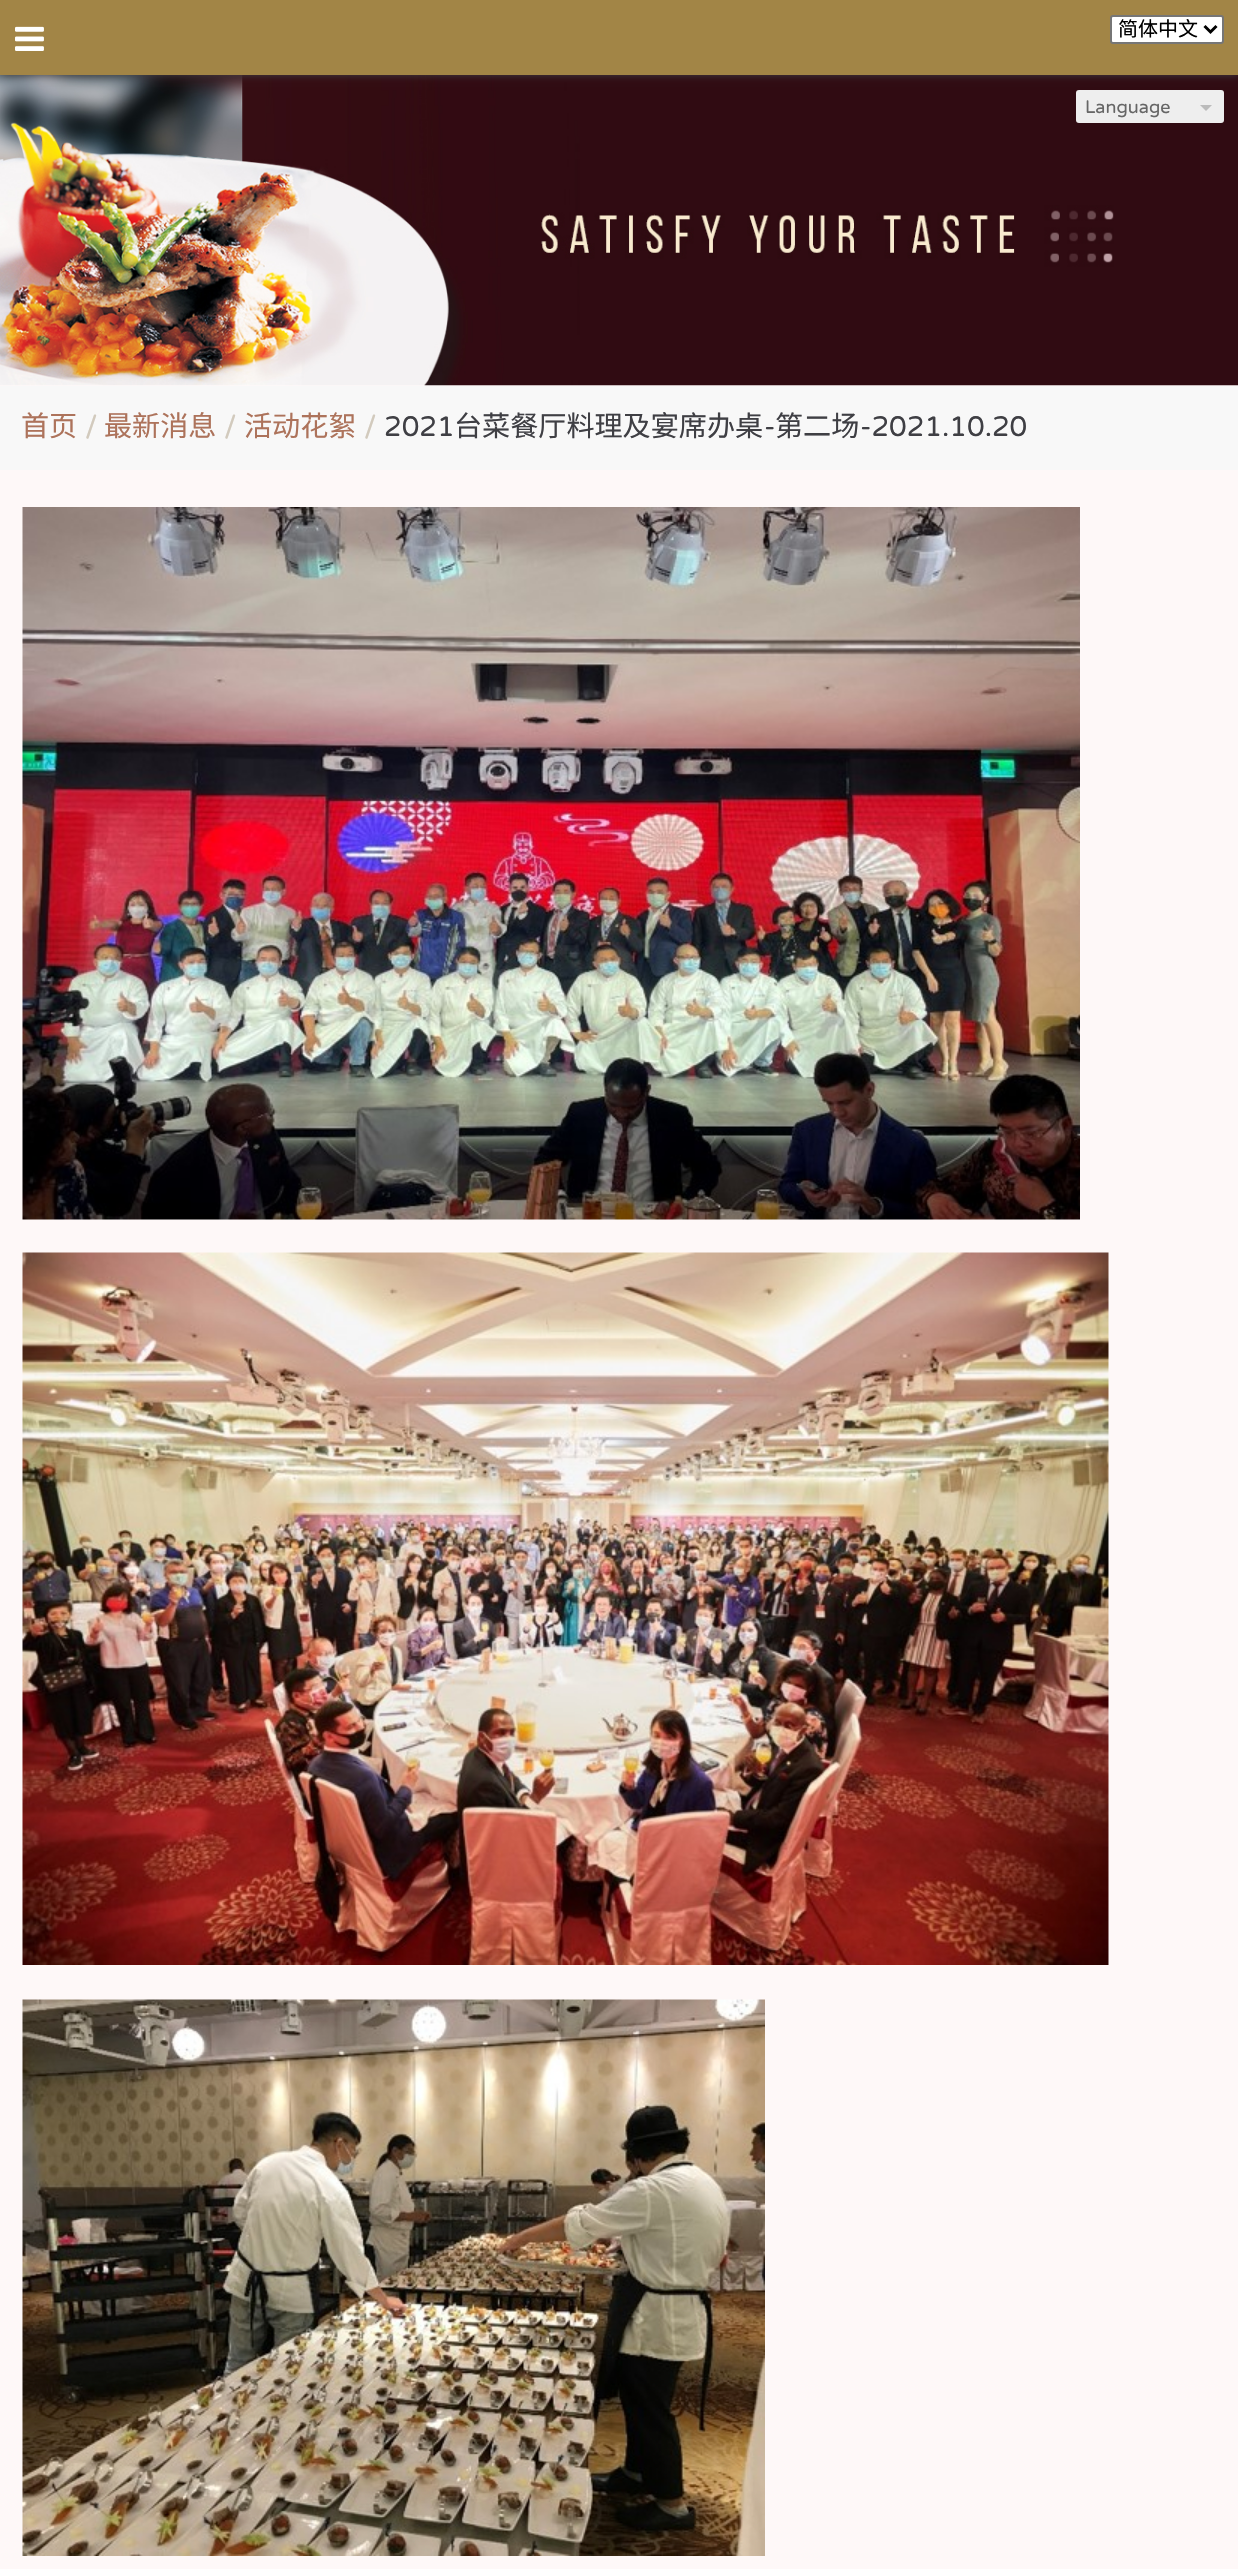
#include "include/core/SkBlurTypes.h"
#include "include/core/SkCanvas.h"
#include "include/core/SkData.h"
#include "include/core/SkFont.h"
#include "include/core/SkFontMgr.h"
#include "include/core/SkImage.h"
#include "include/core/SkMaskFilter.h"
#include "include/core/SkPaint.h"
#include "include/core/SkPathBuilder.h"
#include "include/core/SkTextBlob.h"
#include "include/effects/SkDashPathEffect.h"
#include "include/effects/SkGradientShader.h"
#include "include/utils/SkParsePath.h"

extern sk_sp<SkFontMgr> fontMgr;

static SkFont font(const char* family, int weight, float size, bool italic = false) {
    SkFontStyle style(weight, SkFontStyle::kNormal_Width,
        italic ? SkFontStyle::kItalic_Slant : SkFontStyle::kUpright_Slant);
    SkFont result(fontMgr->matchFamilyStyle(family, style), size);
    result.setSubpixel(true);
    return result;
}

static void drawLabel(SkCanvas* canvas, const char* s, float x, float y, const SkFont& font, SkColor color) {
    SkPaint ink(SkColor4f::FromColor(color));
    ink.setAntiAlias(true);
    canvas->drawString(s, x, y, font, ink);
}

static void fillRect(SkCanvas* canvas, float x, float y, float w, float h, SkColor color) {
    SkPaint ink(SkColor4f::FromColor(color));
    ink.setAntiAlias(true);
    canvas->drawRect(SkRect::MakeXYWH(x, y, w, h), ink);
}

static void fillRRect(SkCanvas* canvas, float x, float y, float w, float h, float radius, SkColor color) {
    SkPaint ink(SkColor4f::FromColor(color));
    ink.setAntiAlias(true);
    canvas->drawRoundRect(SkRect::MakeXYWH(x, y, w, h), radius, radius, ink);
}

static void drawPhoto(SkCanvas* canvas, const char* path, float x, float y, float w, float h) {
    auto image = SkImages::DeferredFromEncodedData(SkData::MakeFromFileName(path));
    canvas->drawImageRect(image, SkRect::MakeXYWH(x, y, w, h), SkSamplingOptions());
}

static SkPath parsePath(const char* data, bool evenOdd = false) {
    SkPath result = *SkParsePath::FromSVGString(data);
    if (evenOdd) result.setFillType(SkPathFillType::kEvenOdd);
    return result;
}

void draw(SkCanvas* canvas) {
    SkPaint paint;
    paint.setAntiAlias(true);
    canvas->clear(0xFFFEF8F8);
    drawPhoto(canvas, "assets/img2.png", 0, 75, 1238, 311);
    paint.setColor(0xFF3F3F44);
    paint.setMaskFilter(SkMaskFilter::MakeBlur(kNormal_SkBlurStyle, 4));
    canvas->drawRect(SkRect::MakeXYWH(2, 3, 1236, 72), paint);
    paint.setMaskFilter(nullptr);
    fillRect(canvas, 0, 0, 1238, 75, 0xFFA28546);
    drawPhoto(canvas, "assets/img1.png", 15, 26, 29, 25);
    paint.setColor(0xFFFFFFFF);
    canvas->drawRoundRect(SkRect::MakeXYWH(1111, 16, 112, 27), 2, 2, paint);
    paint.setStroke(true);
    paint.setStrokeWidth(2);
    paint.setColor(0xFF767676);
    canvas->drawRoundRect(SkRect::MakeXYWH(1111, 16, 112, 27), 2, 2, paint);
    paint.setStrokeWidth(3);
    paint.setColor(0xFF000000);
    canvas->drawPath(parsePath("M1204.5 26L1210.5 32L1216.5 26"), paint);
    SkFont font1 = font("Noto Sans CJK SC", 400, 20);
    drawLabel(canvas, "简体中文", 1118, 36, font1, 0xFF000000);
    fillRRect(canvas, 1076, 90, 148, 33, 3, 0xFFEEEEEE);
    SkFont font2 = font("Varela Round", 400, 18);
    drawLabel(canvas, "Language", 1085, 113, font2, 0xFF666666);
    paint.setStroke(false);
    paint.setColor(0xFFBBBBBB);
    canvas->drawPath(parsePath("M1200 105H1212L1206 111Z"), paint);
    fillRect(canvas, 0, 386, 1238, 84, 0xFFF8F8F8);
    SkFont font3 = font("Noto Sans CJK SC", 400, 28.1f);
    drawLabel(canvas, "首页", 21, 436, font3, 0xFFAD735B);
    SkFont font4 = font("Varela Round", 400, 28.1f);
    drawLabel(canvas, "/", 85, 436, font4, 0xFFD2CABD);
    drawLabel(canvas, "最新消息", 104, 436, font3, 0xFFAD735B);
    drawLabel(canvas, "/", 224, 436, font4, 0xFFD2CABD);
    drawLabel(canvas, "活动花絮", 244, 436, font3, 0xFFAD735B);
    drawLabel(canvas, "/", 364, 436, font4, 0xFFD2CABD);
    drawLabel(canvas, "2021", 384, 436, font4, 0xFF3F3F44);
    drawLabel(canvas, "台菜餐厅料理及宴席办桌", 454, 436, font3, 0xFF3F3F44);
    drawLabel(canvas, "-", 764, 436, font4, 0xFF3F3F44);
    drawLabel(canvas, "第二场", 775, 436, font3, 0xFF3F3F44);
    drawLabel(canvas, "-2021.10.20", 860, 436, font4, 0xFF3F3F44);
    drawPhoto(canvas, "assets/img3.png", 22, 507, 1058, 713);
    drawPhoto(canvas, "assets/img4.png", 22, 1252, 1087, 713);
    drawPhoto(canvas, "assets/img5.png", 22, 1999, 743, 557);
}
